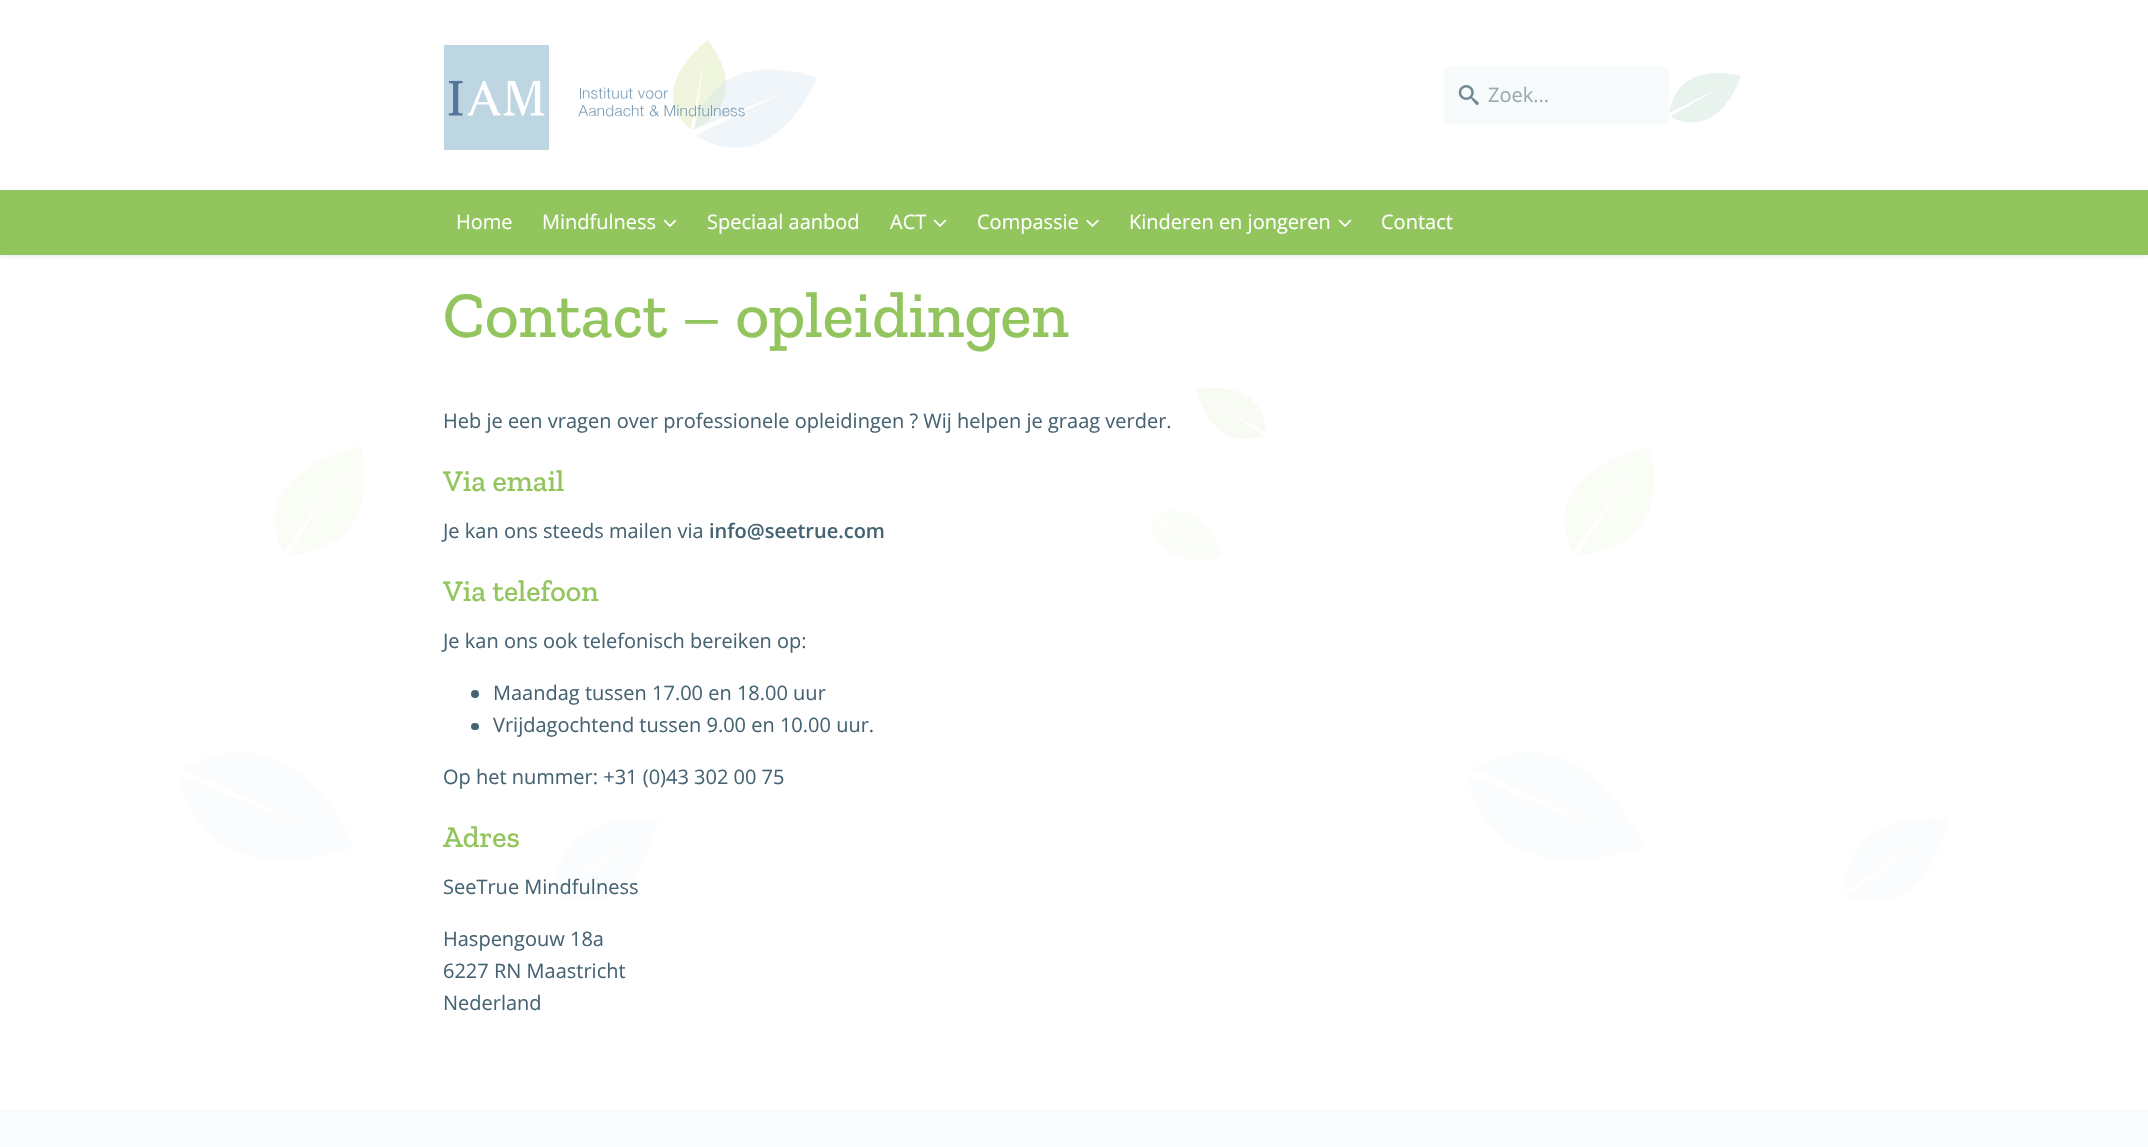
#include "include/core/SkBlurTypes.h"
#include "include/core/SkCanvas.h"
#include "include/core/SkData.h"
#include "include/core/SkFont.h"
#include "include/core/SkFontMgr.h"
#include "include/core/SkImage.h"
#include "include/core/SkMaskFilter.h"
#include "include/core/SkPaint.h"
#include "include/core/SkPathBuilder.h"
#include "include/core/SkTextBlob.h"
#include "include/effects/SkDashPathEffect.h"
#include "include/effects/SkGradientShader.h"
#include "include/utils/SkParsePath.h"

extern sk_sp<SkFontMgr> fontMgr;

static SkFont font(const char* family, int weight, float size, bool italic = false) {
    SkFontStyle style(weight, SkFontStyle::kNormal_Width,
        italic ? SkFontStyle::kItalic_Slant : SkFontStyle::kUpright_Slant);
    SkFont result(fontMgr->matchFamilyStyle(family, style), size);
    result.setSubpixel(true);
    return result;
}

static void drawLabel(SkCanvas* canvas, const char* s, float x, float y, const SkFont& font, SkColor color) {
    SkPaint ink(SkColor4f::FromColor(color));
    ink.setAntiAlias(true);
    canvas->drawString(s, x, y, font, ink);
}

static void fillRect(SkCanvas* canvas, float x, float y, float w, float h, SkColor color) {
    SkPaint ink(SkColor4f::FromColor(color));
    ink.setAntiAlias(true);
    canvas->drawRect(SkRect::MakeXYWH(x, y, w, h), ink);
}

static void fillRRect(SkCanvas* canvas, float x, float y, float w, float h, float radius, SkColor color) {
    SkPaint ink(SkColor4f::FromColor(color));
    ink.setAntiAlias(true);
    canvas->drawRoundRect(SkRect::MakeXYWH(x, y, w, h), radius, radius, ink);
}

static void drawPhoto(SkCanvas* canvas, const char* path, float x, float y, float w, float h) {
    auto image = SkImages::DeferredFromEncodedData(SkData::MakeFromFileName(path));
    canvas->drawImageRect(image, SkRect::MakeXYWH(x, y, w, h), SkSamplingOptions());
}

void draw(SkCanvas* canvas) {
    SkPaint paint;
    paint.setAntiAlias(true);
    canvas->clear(0xFFFFFFFF);
    drawPhoto(canvas, "assets/img3.png", 1669, 73, 72, 50);
    canvas->save();
    canvas->clipRect(SkRect::MakeXYWH(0, 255, 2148, 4));
    paint.setColor(0x26637282);
    paint.setMaskFilter(SkMaskFilter::MakeBlur(kNormal_SkBlurStyle, 2.5f));
    canvas->drawRect(SkRect::MakeXYWH(0, 1, 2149, 255), paint);
    paint.setMaskFilter(nullptr);
    canvas->restore();
    drawPhoto(canvas, "assets/img1.png", 444, 40, 372, 110);
    fillRRect(canvas, 1444, 66, 225, 58, 6, 0xFFF8FBFC);
    drawPhoto(canvas, "assets/img2.png", 1458, 85, 21, 20);
    SkFont font1 = font("Open Sans", 400, 20);
    drawLabel(canvas, "Zoek...", 1488, 102, font1, 0xFF97A9B2);
    fillRect(canvas, 0, 190, 2148, 65, 0xFF92C55D);
    drawLabel(canvas, "Home", 456, 229, font1, 0xFFFFFFFF);
    drawLabel(canvas, "Mindfulness", 542, 229, font1, 0xFFFFFFFF);
    drawPhoto(canvas, "assets/img4.png", 663, 219, 14, 8);
    drawLabel(canvas, "Speciaal aanbod", 707, 229, font1, 0xFFFFFFFF);
    drawLabel(canvas, "ACT", 890, 229, font1, 0xFFFFFFFF);
    drawPhoto(canvas, "assets/img4.png", 933, 219, 14, 8);
    drawLabel(canvas, "Compassie", 977, 229, font1, 0xFFFFFFFF);
    drawPhoto(canvas, "assets/img5.png", 1086, 219, 13, 8);
    drawLabel(canvas, "Kinderen en jongeren", 1129, 229, font1, 0xFFFFFFFF);
    drawPhoto(canvas, "assets/img4.png", 1338, 219, 14, 8);
    drawLabel(canvas, "Contact", 1381, 229, font1, 0xFFFFFFFF);
    drawPhoto(canvas, "assets/img6.png", 179, 388, 1768, 514);
    SkFont font2 = font("Zilla Slab", 500, 65);
    drawLabel(canvas, "Contact – opleidingen", 443, 337, font2, 0xFF92C55D);
    drawLabel(canvas, "Heb je een vragen over professionele opleidingen ? Wij helpen je graag verder.", 443, 428, font1, 0xFF456373);
    SkFont font3 = font("Zilla Slab", 500, 30);
    drawLabel(canvas, "Via email", 443, 491, font3, 0xFF92C55D);
    drawLabel(canvas, "Je kan ons steeds mailen via", 443, 538, font1, 0xFF456373);
    SkFont font4 = font("Open Sans", 600, 20);
    drawLabel(canvas, "info@seetrue.com", 709, 538, font4, 0xFF456373);
    drawLabel(canvas, "Via telefoon", 443, 601, font3, 0xFF92C55D);
    drawLabel(canvas, "Je kan ons ook telefonisch bereiken op:", 443, 648, font1, 0xFF456373);
    paint.setColor(0xFF456373);
    canvas->drawCircle(475, 694, 4, paint);
    drawLabel(canvas, "Maandag tussen 17.00 en 18.00 uur", 493, 700, font1, 0xFF456373);
    fillRRect(canvas, 471, 723, 8, 7, 3.5f, 0xFF456373);
    drawLabel(canvas, "Vrijdagochtend tussen 9.00 en 10.00 uur.", 493, 732, font1, 0xFF456373);
    drawLabel(canvas, "Op het nummer: +31 (0)43 302 00 75", 443, 784, font1, 0xFF456373);
    drawLabel(canvas, "Adres", 443, 847, font3, 0xFF92C55D);
    drawLabel(canvas, "SeeTrue Mindfulness", 443, 894, font1, 0xFF456373);
    drawLabel(canvas, "Haspengouw 18a", 443, 946, font1, 0xFF456373);
    drawLabel(canvas, "6227 RN Maastricht", 443, 978, font1, 0xFF456373);
    drawLabel(canvas, "Nederland", 443, 1010, font1, 0xFF456373);
    fillRect(canvas, 0, 1110, 2148, 37, 0xFFF9FBFC);
}
